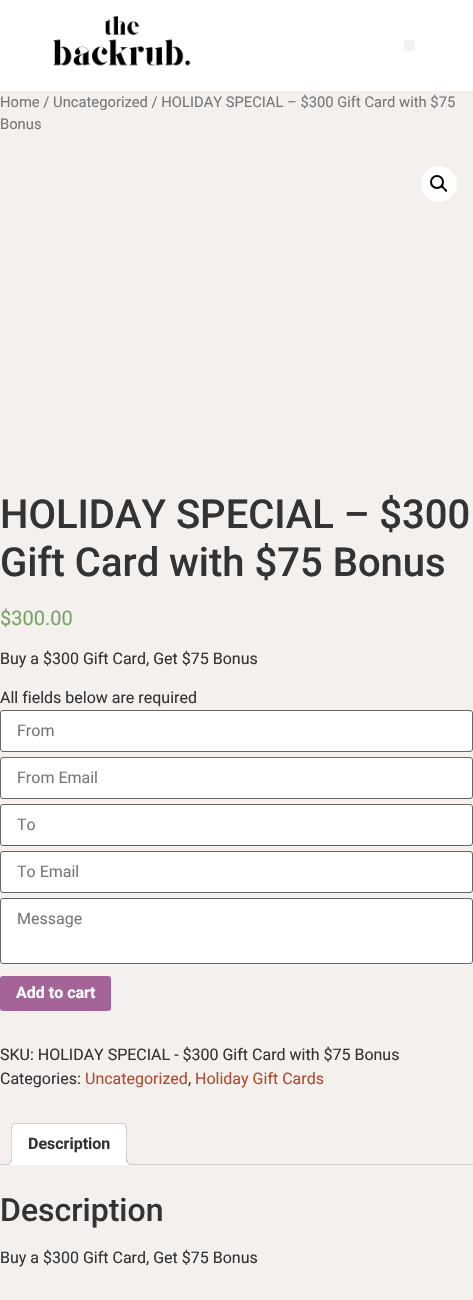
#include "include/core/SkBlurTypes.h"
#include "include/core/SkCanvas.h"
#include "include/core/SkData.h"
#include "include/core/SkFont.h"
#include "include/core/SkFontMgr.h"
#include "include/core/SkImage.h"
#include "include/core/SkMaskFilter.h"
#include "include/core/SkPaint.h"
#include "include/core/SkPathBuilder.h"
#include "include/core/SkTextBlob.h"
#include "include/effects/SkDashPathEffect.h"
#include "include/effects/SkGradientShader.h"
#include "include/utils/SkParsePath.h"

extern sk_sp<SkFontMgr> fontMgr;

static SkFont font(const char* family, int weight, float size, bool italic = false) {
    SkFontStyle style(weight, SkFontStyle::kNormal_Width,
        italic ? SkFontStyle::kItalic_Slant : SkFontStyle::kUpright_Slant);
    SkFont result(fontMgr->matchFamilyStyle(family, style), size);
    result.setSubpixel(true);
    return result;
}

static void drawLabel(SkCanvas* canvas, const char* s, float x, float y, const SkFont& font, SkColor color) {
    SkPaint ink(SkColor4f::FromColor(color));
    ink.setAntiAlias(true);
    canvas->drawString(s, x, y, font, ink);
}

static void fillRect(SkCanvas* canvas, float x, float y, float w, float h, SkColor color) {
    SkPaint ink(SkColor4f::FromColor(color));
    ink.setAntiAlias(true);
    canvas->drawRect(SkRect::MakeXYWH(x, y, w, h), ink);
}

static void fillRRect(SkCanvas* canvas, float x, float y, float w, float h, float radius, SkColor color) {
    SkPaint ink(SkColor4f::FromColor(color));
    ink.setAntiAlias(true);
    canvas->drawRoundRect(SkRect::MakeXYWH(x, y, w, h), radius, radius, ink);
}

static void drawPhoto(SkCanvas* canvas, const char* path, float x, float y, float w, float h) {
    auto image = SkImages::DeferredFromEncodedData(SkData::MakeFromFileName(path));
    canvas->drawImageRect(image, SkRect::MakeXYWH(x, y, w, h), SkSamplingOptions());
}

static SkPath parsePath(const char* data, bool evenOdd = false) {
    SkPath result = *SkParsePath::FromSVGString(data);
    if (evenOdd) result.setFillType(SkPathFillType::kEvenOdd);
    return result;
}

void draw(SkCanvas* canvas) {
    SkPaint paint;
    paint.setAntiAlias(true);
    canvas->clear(0xFFF4F0EE);
    fillRect(canvas, 0, 0, 473, 91, 0xFFFFFFFF);
    drawPhoto(canvas, "assets/img1.png", 53, 16, 138, 50);
    fillRRect(canvas, 404, 40, 11, 11, 3, 0xFFF2F2F2);
    SkFont font1 = font("Roboto", 400, 14.75f);
    drawLabel(canvas, "Home / Uncategorized / HOLIDAY SPECIAL – $300 Gift Card with $75", 0, 107, font1, 0xFF777777);
    drawLabel(canvas, "Bonus", 0, 129, font1, 0xFF777777);
    paint.setColor(0xFFFFFFFF);
    canvas->drawCircle(439, 184, 18, paint);
    paint.setStroke(true);
    paint.setStrokeWidth(2);
    paint.setColor(0xFF000000);
    canvas->drawCircle(437, 182, 6, paint);
    paint.setStroke(false);
    canvas->drawPath(parsePath("M441 185.5C442.5 184.5 444 187 444.5 188C445.5 188.5 448 190 447 191.5C445.5 192.5 444 190 443.5 189C442.5 188.5 440 187 441 185.5Z"), paint);
    SkFont font2 = font("Roboto", 500, 40);
    drawLabel(canvas, "HOLIDAY SPECIAL – $300", 0, 528, font2, 0xFF333333);
    drawLabel(canvas, "Gift Card with $75 Bonus", 0, 576, font2, 0xFF333333);
    SkFont font3 = font("Roboto", 400, 20);
    drawLabel(canvas, "$300.00", 0, 625, font3, 0xFF77A464);
    SkFont font4 = font("Roboto", 400, 16);
    drawLabel(canvas, "Buy a $300 Gift Card, Get $75 Bonus", 0, 664, font4, 0xFF333333);
    drawLabel(canvas, "All fields below are required", 0, 703, font4, 0xFF333333);
    paint.setColor(0xFFFFFFFF);
    canvas->drawRoundRect(SkRect::MakeXYWH(0.5f, 710.5f, 472, 41), 2.5f, 2.5f, paint);
    paint.setStroke(true);
    paint.setStrokeWidth(1);
    paint.setColor(0xFF666666);
    canvas->drawRoundRect(SkRect::MakeXYWH(0.5f, 710.5f, 472, 41), 2.5f, 2.5f, paint);
    drawLabel(canvas, "From", 17, 736, font4, 0xFF777777);
    paint.setStroke(false);
    paint.setColor(0xFFFFFFFF);
    canvas->drawRoundRect(SkRect::MakeXYWH(0.5f, 757.5f, 472, 41), 2.5f, 2.5f, paint);
    paint.setStroke(true);
    paint.setColor(0xFF666666);
    canvas->drawRoundRect(SkRect::MakeXYWH(0.5f, 757.5f, 472, 41), 2.5f, 2.5f, paint);
    drawLabel(canvas, "From Email", 17, 783, font4, 0xFF777777);
    paint.setStroke(false);
    paint.setColor(0xFFFFFFFF);
    canvas->drawRoundRect(SkRect::MakeXYWH(0.5f, 804.5f, 472, 41), 2.5f, 2.5f, paint);
    paint.setStroke(true);
    paint.setColor(0xFF666666);
    canvas->drawRoundRect(SkRect::MakeXYWH(0.5f, 804.5f, 472, 41), 2.5f, 2.5f, paint);
    drawLabel(canvas, "To", 17, 830, font4, 0xFF777777);
    paint.setStroke(false);
    paint.setColor(0xFFFFFFFF);
    canvas->drawRoundRect(SkRect::MakeXYWH(0.5f, 851.5f, 472, 41), 2.5f, 2.5f, paint);
    paint.setStroke(true);
    paint.setColor(0xFF666666);
    canvas->drawRoundRect(SkRect::MakeXYWH(0.5f, 851.5f, 472, 41), 2.5f, 2.5f, paint);
    drawLabel(canvas, "To Email", 17, 877, font4, 0xFF777777);
    paint.setStroke(false);
    paint.setColor(0xFFFFFFFF);
    canvas->drawRoundRect(SkRect::MakeXYWH(0.5f, 898.5f, 472, 65), 2.5f, 2.5f, paint);
    paint.setStroke(true);
    paint.setColor(0xFF666666);
    canvas->drawRoundRect(SkRect::MakeXYWH(0.5f, 898.5f, 472, 65), 2.5f, 2.5f, paint);
    drawLabel(canvas, "Message", 17, 924, font4, 0xFF777777);
    fillRRect(canvas, 0, 976, 111, 35, 3, 0xFFA46497);
    SkFont font5 = font("Roboto", 700, 16);
    drawLabel(canvas, "Add to cart", 16, 998, font5, 0xFFFFFFFF);
    drawLabel(canvas, "SKU: HOLIDAY SPECIAL - $300 Gift Card with $75 Bonus", 0, 1060, font4, 0xFF333333);
    drawLabel(canvas, "Categories:", 0, 1084, font4, 0xFF333333);
    drawLabel(canvas, "Uncategorized", 85, 1084, font4, 0xFFAF4B2F);
    drawLabel(canvas, ",", 188, 1084, font4, 0xFF333333);
    drawLabel(canvas, "Holiday Gift Cards", 195, 1084, font4, 0xFFAF4B2F);
    fillRect(canvas, 0, 1164, 473, 1, 0xFFD3CED2);
    paint.setStroke(false);
    paint.setColor(0xFFFFFFFF);
    canvas->drawPath(parsePath("M15 1123H123C125 1123 127 1125 127 1127V1165H11V1127C11 1125 13 1123 15 1123Z"), paint);
    paint.setColor(0xFFD3CED2);
    canvas->drawPath(parsePath("M15 1123L12 1124L13 1125L15 1124H123L125 1125L126 1124L123 1123Z"), paint);
    canvas->drawPath(parsePath("M127 1165V1127C127 1126 126 1125 126 1124L125 1125C127 1127 126 1159 126 1164Z"), paint);
    paint.setColor(0xFFFFFFFF);
    canvas->drawPath(parsePath("M127 1165L126 1164H12L11 1165Z"), paint);
    paint.setColor(0xFFD3CED2);
    canvas->drawPath(parsePath("M11 1165L12 1164C12 1159 11 1127 13 1125L12 1124L11 1127Z"), paint);
    drawLabel(canvas, "Description", 28, 1149, font5, 0xFF333333);
    canvas->save();
    canvas->clipRect(SkRect::MakeXYWH(0, 1123, 473, 42));
    paint.setColor(0xFFFFFFFF);
    canvas->drawPath(parsePath("M8 1165V1167C11.5 1167 13 1165.5 13 1162H11C10.5 1163.5 9.5 1164.5 8 1165Z"), paint);
    canvas->restore();
    paint.setColor(0xFFD3CED2);
    canvas->drawPath(parsePath("M6 1160H11C11 1163.5 9.5 1165 6 1165ZM6 1160H10C10 1163 9 1164 6 1164Z", true), paint);
    canvas->save();
    canvas->clipRect(SkRect::MakeXYWH(0, 1123, 473, 42));
    paint.setColor(0xFFFFFFFF);
    canvas->drawPath(parsePath("M125 1162C125 1165.5 126.5 1167 130 1167V1165C128.5 1164.5 127.5 1163.5 127 1162Z"), paint);
    canvas->restore();
    paint.setColor(0xFFD3CED2);
    canvas->drawPath(parsePath("M127 1160H132V1165C129.5 1165 127 1164 127 1161ZM128 1160H132V1164C130 1164 128 1163.5 128 1161Z", true), paint);
    SkFont font6 = font("Roboto", 500, 32);
    drawLabel(canvas, "Description", 0, 1221, font6, 0xFF333333);
    drawLabel(canvas, "Buy a $300 Gift Card, Get $75 Bonus", 0, 1263, font4, 0xFF333333);
}
